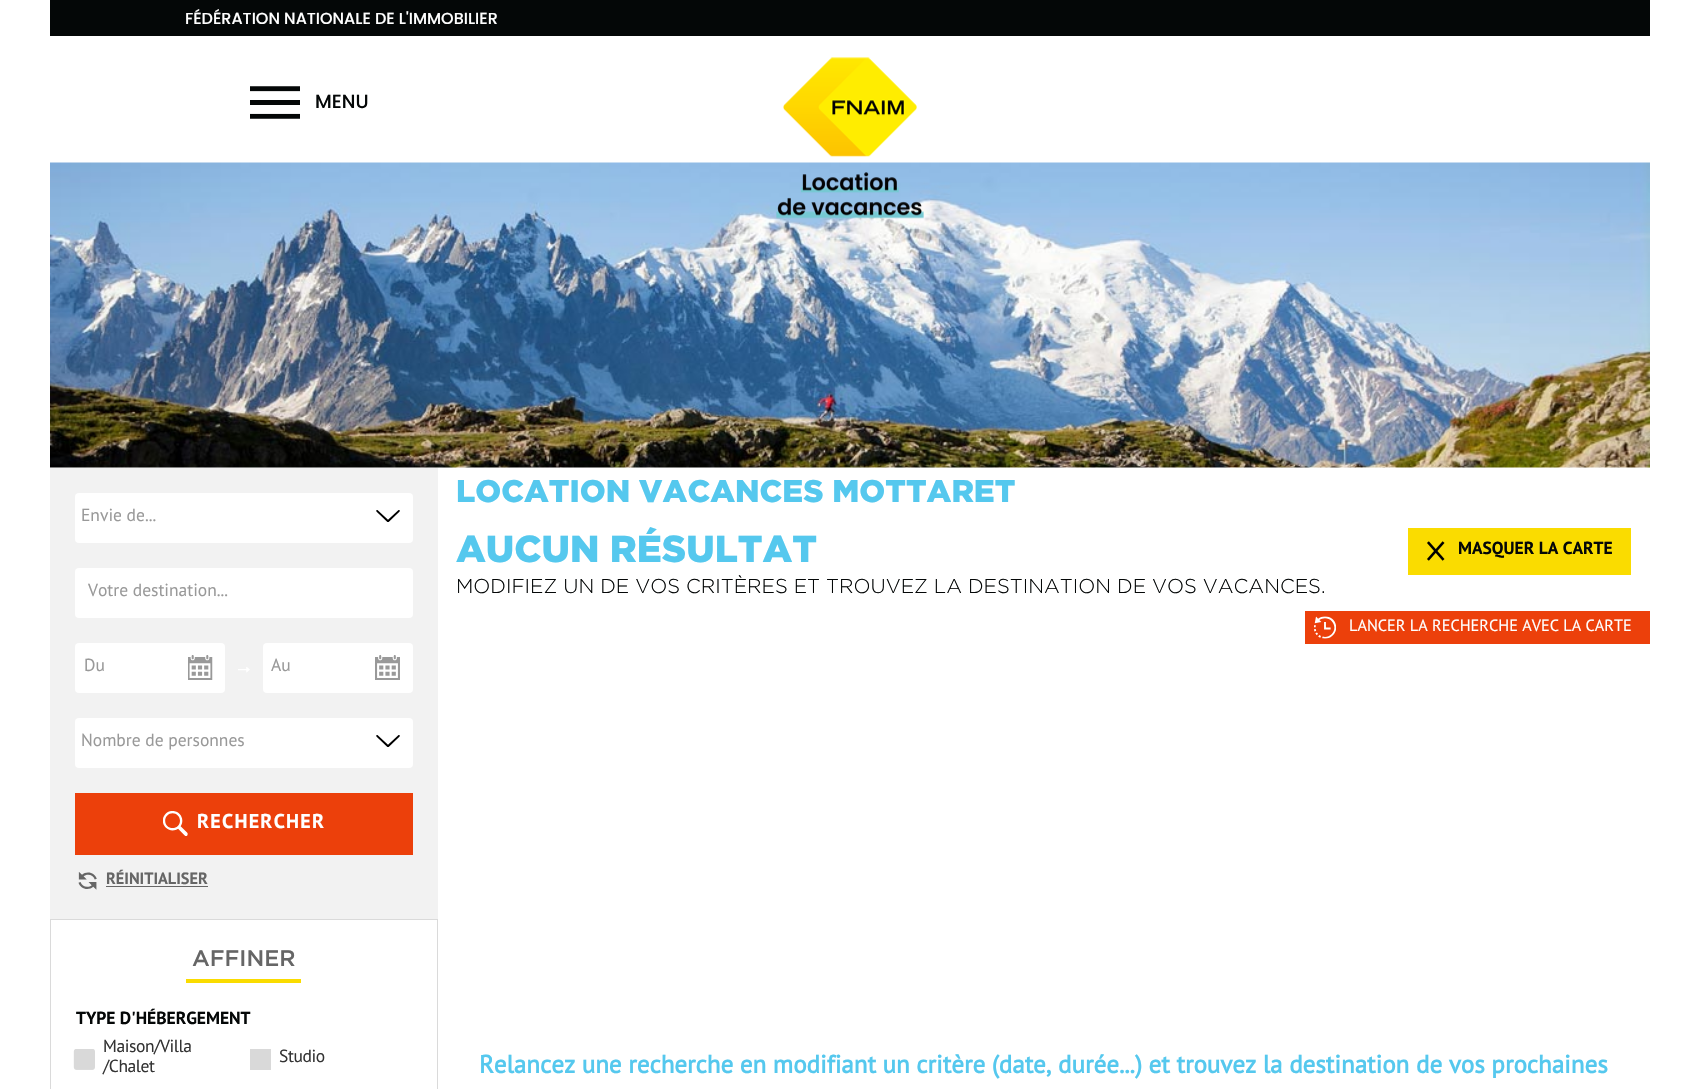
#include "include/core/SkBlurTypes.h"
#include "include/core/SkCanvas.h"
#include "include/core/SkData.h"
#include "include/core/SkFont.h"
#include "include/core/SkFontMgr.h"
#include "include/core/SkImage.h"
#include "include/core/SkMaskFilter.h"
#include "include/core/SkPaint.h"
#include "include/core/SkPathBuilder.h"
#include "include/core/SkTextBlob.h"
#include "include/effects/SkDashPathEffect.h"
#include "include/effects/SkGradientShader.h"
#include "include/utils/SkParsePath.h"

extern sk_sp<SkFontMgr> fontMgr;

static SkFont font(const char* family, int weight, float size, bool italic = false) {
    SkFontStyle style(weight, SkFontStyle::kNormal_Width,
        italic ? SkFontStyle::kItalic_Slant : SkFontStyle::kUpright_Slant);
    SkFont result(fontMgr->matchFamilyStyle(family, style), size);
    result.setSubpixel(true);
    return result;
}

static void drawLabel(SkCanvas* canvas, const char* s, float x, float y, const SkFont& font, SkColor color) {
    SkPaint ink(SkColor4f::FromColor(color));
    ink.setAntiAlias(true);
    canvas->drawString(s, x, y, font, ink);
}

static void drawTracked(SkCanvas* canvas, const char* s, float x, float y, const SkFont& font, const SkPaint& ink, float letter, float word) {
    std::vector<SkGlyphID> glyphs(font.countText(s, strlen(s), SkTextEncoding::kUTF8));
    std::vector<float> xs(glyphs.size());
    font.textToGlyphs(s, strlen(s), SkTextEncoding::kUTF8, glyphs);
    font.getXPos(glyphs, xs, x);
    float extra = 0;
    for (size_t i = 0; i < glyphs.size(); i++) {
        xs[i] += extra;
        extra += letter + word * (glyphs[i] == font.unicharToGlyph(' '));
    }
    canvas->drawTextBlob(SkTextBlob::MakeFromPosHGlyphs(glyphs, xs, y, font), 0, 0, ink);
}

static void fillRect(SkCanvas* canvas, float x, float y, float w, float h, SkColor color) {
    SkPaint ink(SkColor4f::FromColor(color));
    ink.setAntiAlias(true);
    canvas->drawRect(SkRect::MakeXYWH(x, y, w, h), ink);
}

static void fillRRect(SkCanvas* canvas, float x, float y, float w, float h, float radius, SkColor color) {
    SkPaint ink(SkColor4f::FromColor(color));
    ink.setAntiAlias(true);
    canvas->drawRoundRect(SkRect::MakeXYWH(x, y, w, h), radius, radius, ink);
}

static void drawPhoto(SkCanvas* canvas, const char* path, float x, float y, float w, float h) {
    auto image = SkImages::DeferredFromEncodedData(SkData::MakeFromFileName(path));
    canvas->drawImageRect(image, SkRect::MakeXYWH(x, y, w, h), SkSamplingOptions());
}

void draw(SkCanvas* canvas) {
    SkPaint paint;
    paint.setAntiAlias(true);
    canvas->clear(0xFFFFFFFF);
    fillRect(canvas, 50, 0, 1600, 36, 0xFF040707);
    SkFont font1 = font("Poppins", 500, 16);
    drawLabel(canvas, "FÉDÉRATION NATIONALE DE L'IMMOBILIER", 185, 24, font1, 0xFFFFFFFF);
    drawPhoto(canvas, "assets/img1.png", 250, 86, 50, 33);
    SkFont font2 = font("Poppins", 500, 19);
    drawLabel(canvas, "MENU", 315, 108, font2, 0xFF040707);
    drawPhoto(canvas, "assets/img3.png", 50, 162, 1600, 306);
    drawPhoto(canvas, "assets/img2.png", 776, 57, 148, 162);
    fillRect(canvas, 50, 468, 388, 451, 0xFFF2F2F2);
    fillRRect(canvas, 75, 493, 338, 50, 4, 0xFFFFFFFF);
    drawPhoto(canvas, "assets/img4.png", 376, 510, 24, 12);
    SkFont font3 = font("PT Sans", 400, 17.5f);
    drawLabel(canvas, "Envie de...", 81, 521, font3, 0xFF999999);
    fillRRect(canvas, 75, 568, 338, 50, 4, 0xFFFFFFFF);
    drawLabel(canvas, "Votre destination...", 88, 596, font3, 0xFF999999);
    drawPhoto(canvas, "assets/img5.png", 238, 667, 12, 6);
    fillRRect(canvas, 75, 643, 150, 50, 4, 0xFFFFFFFF);
    drawPhoto(canvas, "assets/img6.png", 188, 655, 25, 25);
    drawLabel(canvas, "Du", 84, 671, font3, 0xFF999999);
    fillRRect(canvas, 263, 643, 150, 50, 4, 0xFFFFFFFF);
    drawPhoto(canvas, "assets/img7.png", 375, 655, 25, 25);
    drawLabel(canvas, "Au", 271, 671, font3, 0xFF999999);
    fillRRect(canvas, 75, 718, 338, 50, 4, 0xFFFFFFFF);
    drawPhoto(canvas, "assets/img4.png", 376, 735, 24, 12);
    drawLabel(canvas, "Nombre de personnes", 81, 746, font3, 0xFF999999);
    fillRect(canvas, 75, 793, 338, 62, 0xFFEC400B);
    drawPhoto(canvas, "assets/img8.png", 163, 811, 25, 25);
    SkFont font4 = font("PT Sans", 700, 20);
    paint.setColor(0xFFFFFFFF);
    drawTracked(canvas, "RECHERCHER", 197, 828, font4, paint, 1.25f, 0);
    drawPhoto(canvas, "assets/img9.png", 78, 872, 19, 18);
    SkFont font5 = font("PT Sans", 700, 16.25f);
    drawLabel(canvas, "RÉINITIALISER", 106, 884, font5, 0xFF666666);
    fillRect(canvas, 106, 886, 102, 1, 0xFF666666);
    paint.setStroke(true);
    paint.setStrokeWidth(1);
    paint.setColor(0xFFDADADA);
    canvas->drawRect(SkRect::MakeXYWH(50.5f, 919.5f, 387, 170), paint);
    SkFont font6 = font("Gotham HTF", 500, 22.5f);
    drawLabel(canvas, "AFFINER", 192, 966, font6, 0xFF666666);
    fillRect(canvas, 186, 979, 115, 4, 0xFFFADC00);
    SkFont font7 = font("PT Sans", 700, 17.5f);
    drawLabel(canvas, "TYPE D'HÉBERGEMENT", 76, 1024, font7, 0xFF040707);
    drawPhoto(canvas, "assets/img10.png", 73, 1049, 22, 21);
    paint.setStroke(false);
    paint.setColor(0xFF333333);
    drawTracked(canvas, "Maison/Villa", 103, 1052, font3, paint, -0.4f, 0);
    drawTracked(canvas, "/Chalet", 103, 1072, font3, paint, -0.4f, 0);
    fillRect(canvas, 250, 1049, 21, 21, 0xFFD9D9D9);
    drawTracked(canvas, "Studio", 279, 1062, font3, paint, -0.4f, 0);
    SkFont font8 = font("Gotham HTF", 900, 31.25f);
    drawLabel(canvas, "LOCATION VACANCES MOTTARET", 456, 502, font8, 0xFF55C8EE);
    SkFont font9 = font("Gotham HTF", 900, 37.5f);
    drawLabel(canvas, "AUCUN RÉSULTAT", 456, 562, font9, 0xFF55C8EE);
    SkFont font10 = font("Gotham HTF", 300, 20);
    drawLabel(canvas, "MODIFIEZ UN DE VOS CRITÈRES ET TROUVEZ LA DESTINATION DE VOS VACANCES.", 456, 593, font10, 0xFF040707);
    fillRect(canvas, 1408, 528, 223, 47, 0xFFFADC00);
    drawPhoto(canvas, "assets/img11.png", 1427, 541, 18, 20);
    drawLabel(canvas, "MASQUER LA CARTE", 1458, 554, font7, 0xFF040707);
    fillRect(canvas, 1305, 611, 345, 33, 0xFFEC400B);
    drawPhoto(canvas, "assets/img12.png", 1314, 616, 22, 23);
    SkFont font11 = font("PT Sans", 400, 16.25f);
    drawLabel(canvas, "LANCER LA RECHERCHE AVEC LA CARTE", 1349, 631, font11, 0xFFFFFFFF);
    SkFont font12 = font("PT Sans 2", 700, 25);
    drawLabel(canvas, "Relancez une recherche en modifiant un critère (date, durée...) et trouvez la destination de vos prochaines", 479, 1073, font12, 0xFF55C8EE);
}
